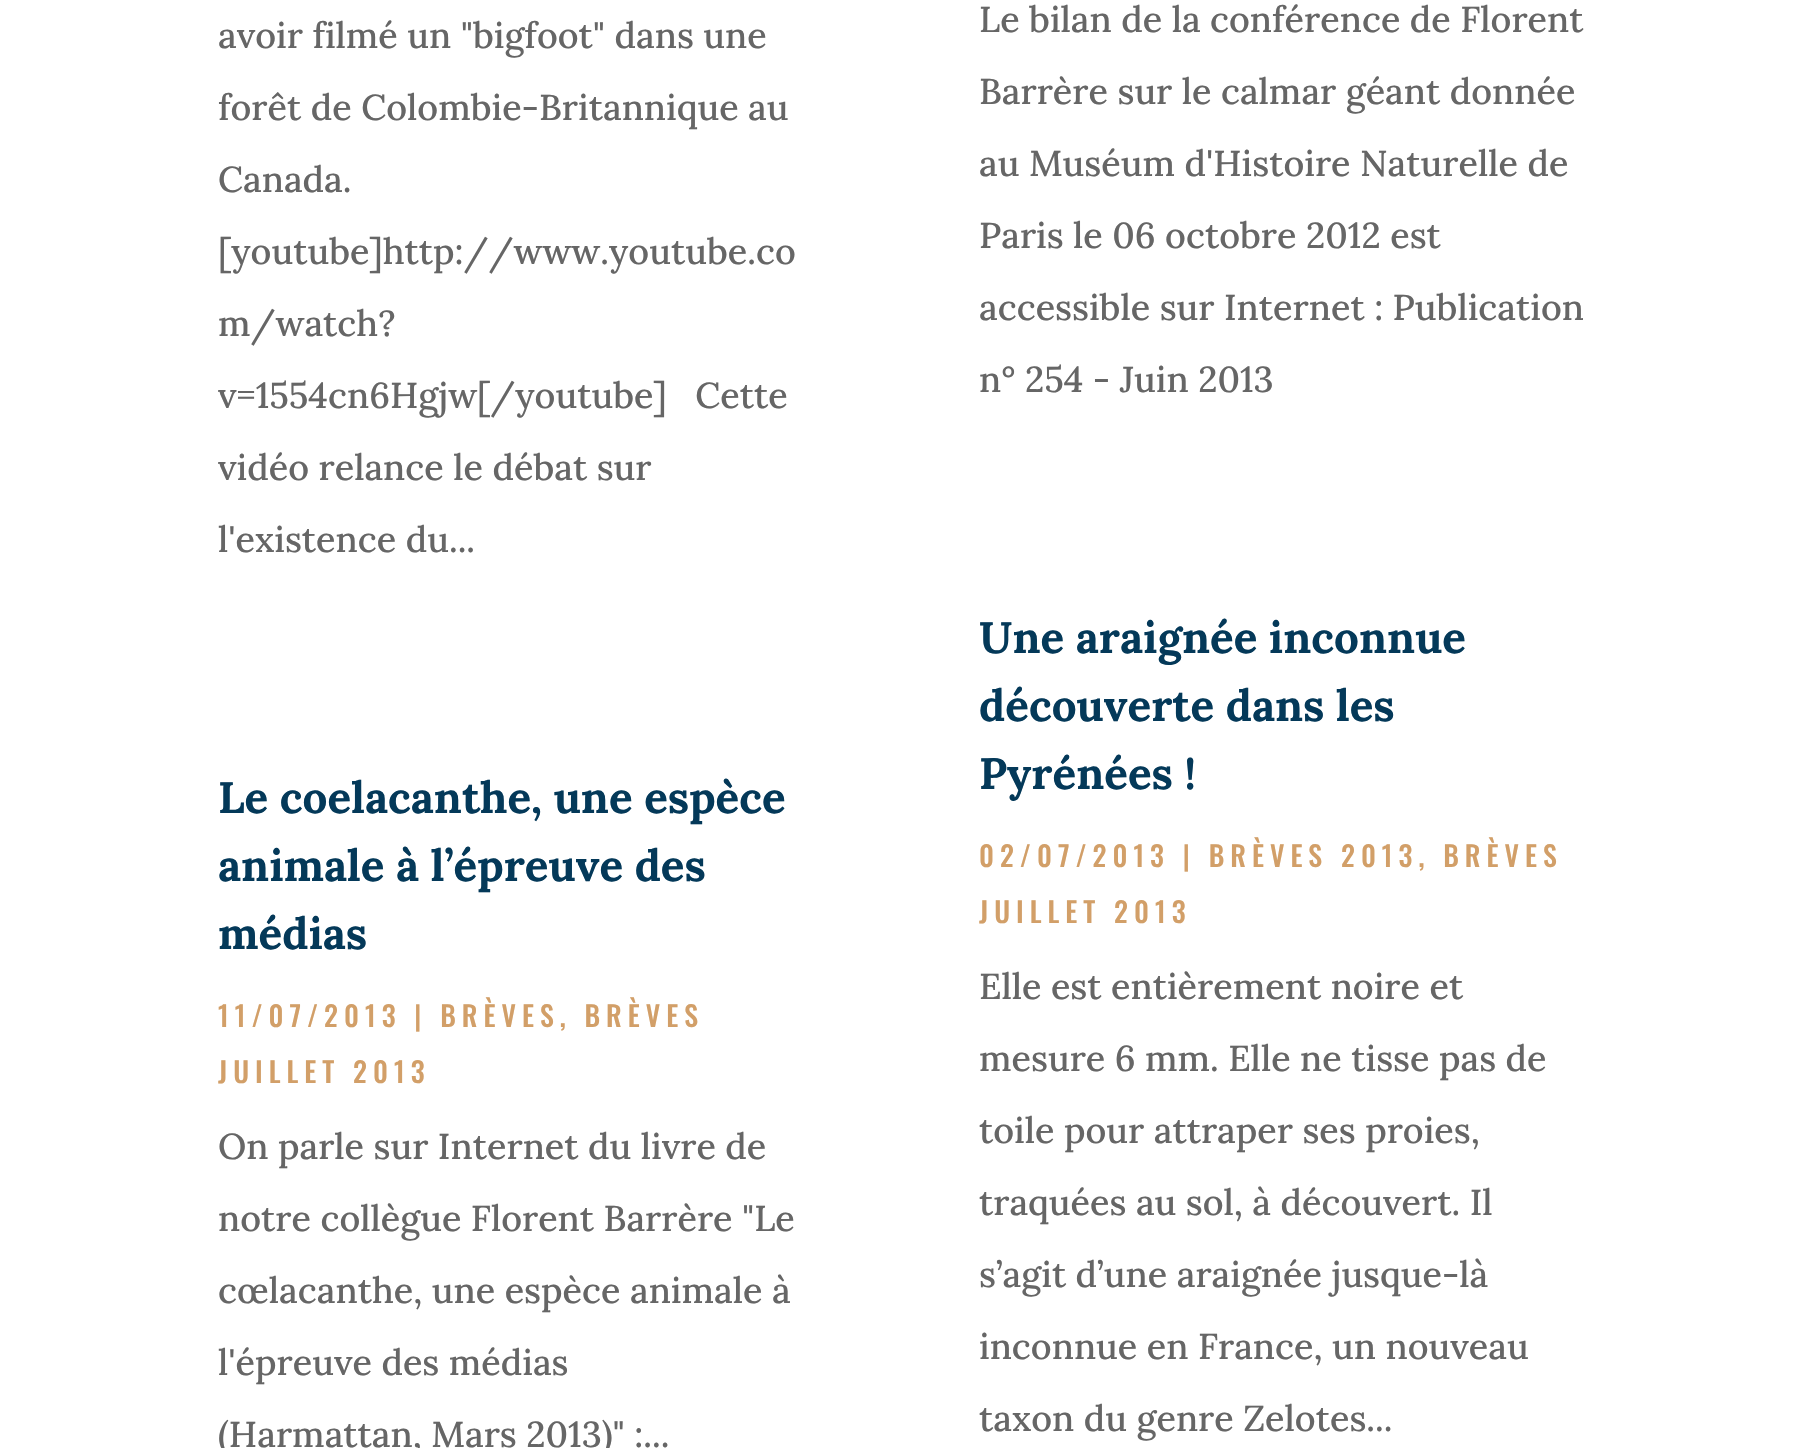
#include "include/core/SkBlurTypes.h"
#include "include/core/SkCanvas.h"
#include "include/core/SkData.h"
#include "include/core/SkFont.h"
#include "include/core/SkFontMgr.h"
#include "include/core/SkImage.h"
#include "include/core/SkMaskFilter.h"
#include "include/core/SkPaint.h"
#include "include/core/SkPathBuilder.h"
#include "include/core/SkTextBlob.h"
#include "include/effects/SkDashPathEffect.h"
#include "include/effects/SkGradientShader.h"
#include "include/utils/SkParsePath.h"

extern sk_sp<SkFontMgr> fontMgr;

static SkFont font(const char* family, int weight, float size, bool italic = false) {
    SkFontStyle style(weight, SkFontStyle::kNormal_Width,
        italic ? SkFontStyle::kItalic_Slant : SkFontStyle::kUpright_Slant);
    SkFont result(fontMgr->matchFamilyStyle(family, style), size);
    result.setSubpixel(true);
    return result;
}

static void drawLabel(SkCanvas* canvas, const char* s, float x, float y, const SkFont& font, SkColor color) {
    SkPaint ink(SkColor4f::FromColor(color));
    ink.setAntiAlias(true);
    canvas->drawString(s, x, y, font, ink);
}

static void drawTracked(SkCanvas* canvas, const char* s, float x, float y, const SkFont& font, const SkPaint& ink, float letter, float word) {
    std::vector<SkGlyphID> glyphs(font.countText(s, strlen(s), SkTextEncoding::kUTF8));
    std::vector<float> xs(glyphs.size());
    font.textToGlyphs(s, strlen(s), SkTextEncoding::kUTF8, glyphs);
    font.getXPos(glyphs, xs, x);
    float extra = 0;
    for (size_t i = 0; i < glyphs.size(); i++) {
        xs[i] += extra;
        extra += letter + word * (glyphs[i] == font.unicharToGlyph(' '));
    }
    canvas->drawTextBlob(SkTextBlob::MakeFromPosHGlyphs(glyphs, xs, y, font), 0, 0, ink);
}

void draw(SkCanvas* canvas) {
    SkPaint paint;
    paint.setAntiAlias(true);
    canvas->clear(0xFFFFFFFF);
    SkFont font1 = font("Lora", 500, 36);
    drawLabel(canvas, "avoir filmé un \"bigfoot\" dans une", 218, 48, font1, 0xFF666666);
    drawLabel(canvas, "forêt de Colombie-Britannique au", 218, 120, font1, 0xFF666666);
    drawLabel(canvas, "Canada.", 218, 192, font1, 0xFF666666);
    drawLabel(canvas, "[youtube]http://www.youtube.co", 218, 264, font1, 0xFF666666);
    drawLabel(canvas, "m/watch?", 218, 336, font1, 0xFF666666);
    drawLabel(canvas, "v=1554cn6Hgjw[/youtube]   Cette", 218, 408, font1, 0xFF666666);
    drawLabel(canvas, "vidéo relance le débat sur", 218, 480, font1, 0xFF666666);
    drawLabel(canvas, "l'existence du...", 218, 552, font1, 0xFF666666);
    SkFont font2 = font("Lora", 700, 44);
    drawLabel(canvas, "Le coelacanthe, une espèce", 218, 813, font2, 0xFF043959);
    drawLabel(canvas, "animale à l’épreuve des", 218, 881, font2, 0xFF043959);
    drawLabel(canvas, "médias", 218, 949, font2, 0xFF043959);
    SkFont font3 = font("Oswald", 500, 28);
    paint.setColor(0xFFD29F68);
    drawTracked(canvas, "11/07/2013 | BRÈVES, BRÈVES", 218, 1027, font3, paint, 6, 0);
    drawTracked(canvas, "JUILLET 2013", 218, 1083, font3, paint, 6, 0);
    drawLabel(canvas, "On parle sur Internet du livre de", 218, 1159, font1, 0xFF666666);
    drawLabel(canvas, "notre collègue Florent Barrère \"Le", 218, 1231, font1, 0xFF666666);
    drawLabel(canvas, "cœlacanthe, une espèce animale à", 218, 1303, font1, 0xFF666666);
    drawLabel(canvas, "l'épreuve des médias", 218, 1375, font1, 0xFF666666);
    drawLabel(canvas, "(Harmattan, Mars 2013)\" :...", 218, 1447, font1, 0xFF666666);
    drawLabel(canvas, "Le bilan de la conférence de Florent", 979, 32, font1, 0xFF666666);
    drawLabel(canvas, "Barrère sur le calmar géant donnée", 979, 104, font1, 0xFF666666);
    drawLabel(canvas, "au Muséum d'Histoire Naturelle de", 979, 176, font1, 0xFF666666);
    drawLabel(canvas, "Paris le 06 octobre 2012 est", 979, 248, font1, 0xFF666666);
    drawLabel(canvas, "accessible sur Internet : Publication", 979, 320, font1, 0xFF666666);
    drawLabel(canvas, "n° 254 - Juin 2013", 979, 392, font1, 0xFF666666);
    drawLabel(canvas, "Une araignée inconnue", 979, 653, font2, 0xFF043959);
    drawLabel(canvas, "découverte dans les", 979, 721, font2, 0xFF043959);
    drawLabel(canvas, "Pyrénées !", 979, 789, font2, 0xFF043959);
    drawTracked(canvas, "02/07/2013 | BRÈVES 2013, BRÈVES", 979, 867, font3, paint, 6, 0);
    drawTracked(canvas, "JUILLET 2013", 979, 923, font3, paint, 6, 0);
    drawLabel(canvas, "Elle est entièrement noire et", 979, 999, font1, 0xFF666666);
    drawLabel(canvas, "mesure 6 mm. Elle ne tisse pas de", 979, 1071, font1, 0xFF666666);
    drawLabel(canvas, "toile pour attraper ses proies,", 979, 1143, font1, 0xFF666666);
    drawLabel(canvas, "traquées au sol, à découvert. Il", 979, 1215, font1, 0xFF666666);
    drawLabel(canvas, "s’agit d’une araignée jusque-là", 979, 1287, font1, 0xFF666666);
    drawLabel(canvas, "inconnue en France, un nouveau", 979, 1359, font1, 0xFF666666);
    drawLabel(canvas, "taxon du genre Zelotes...", 979, 1431, font1, 0xFF666666);
}
